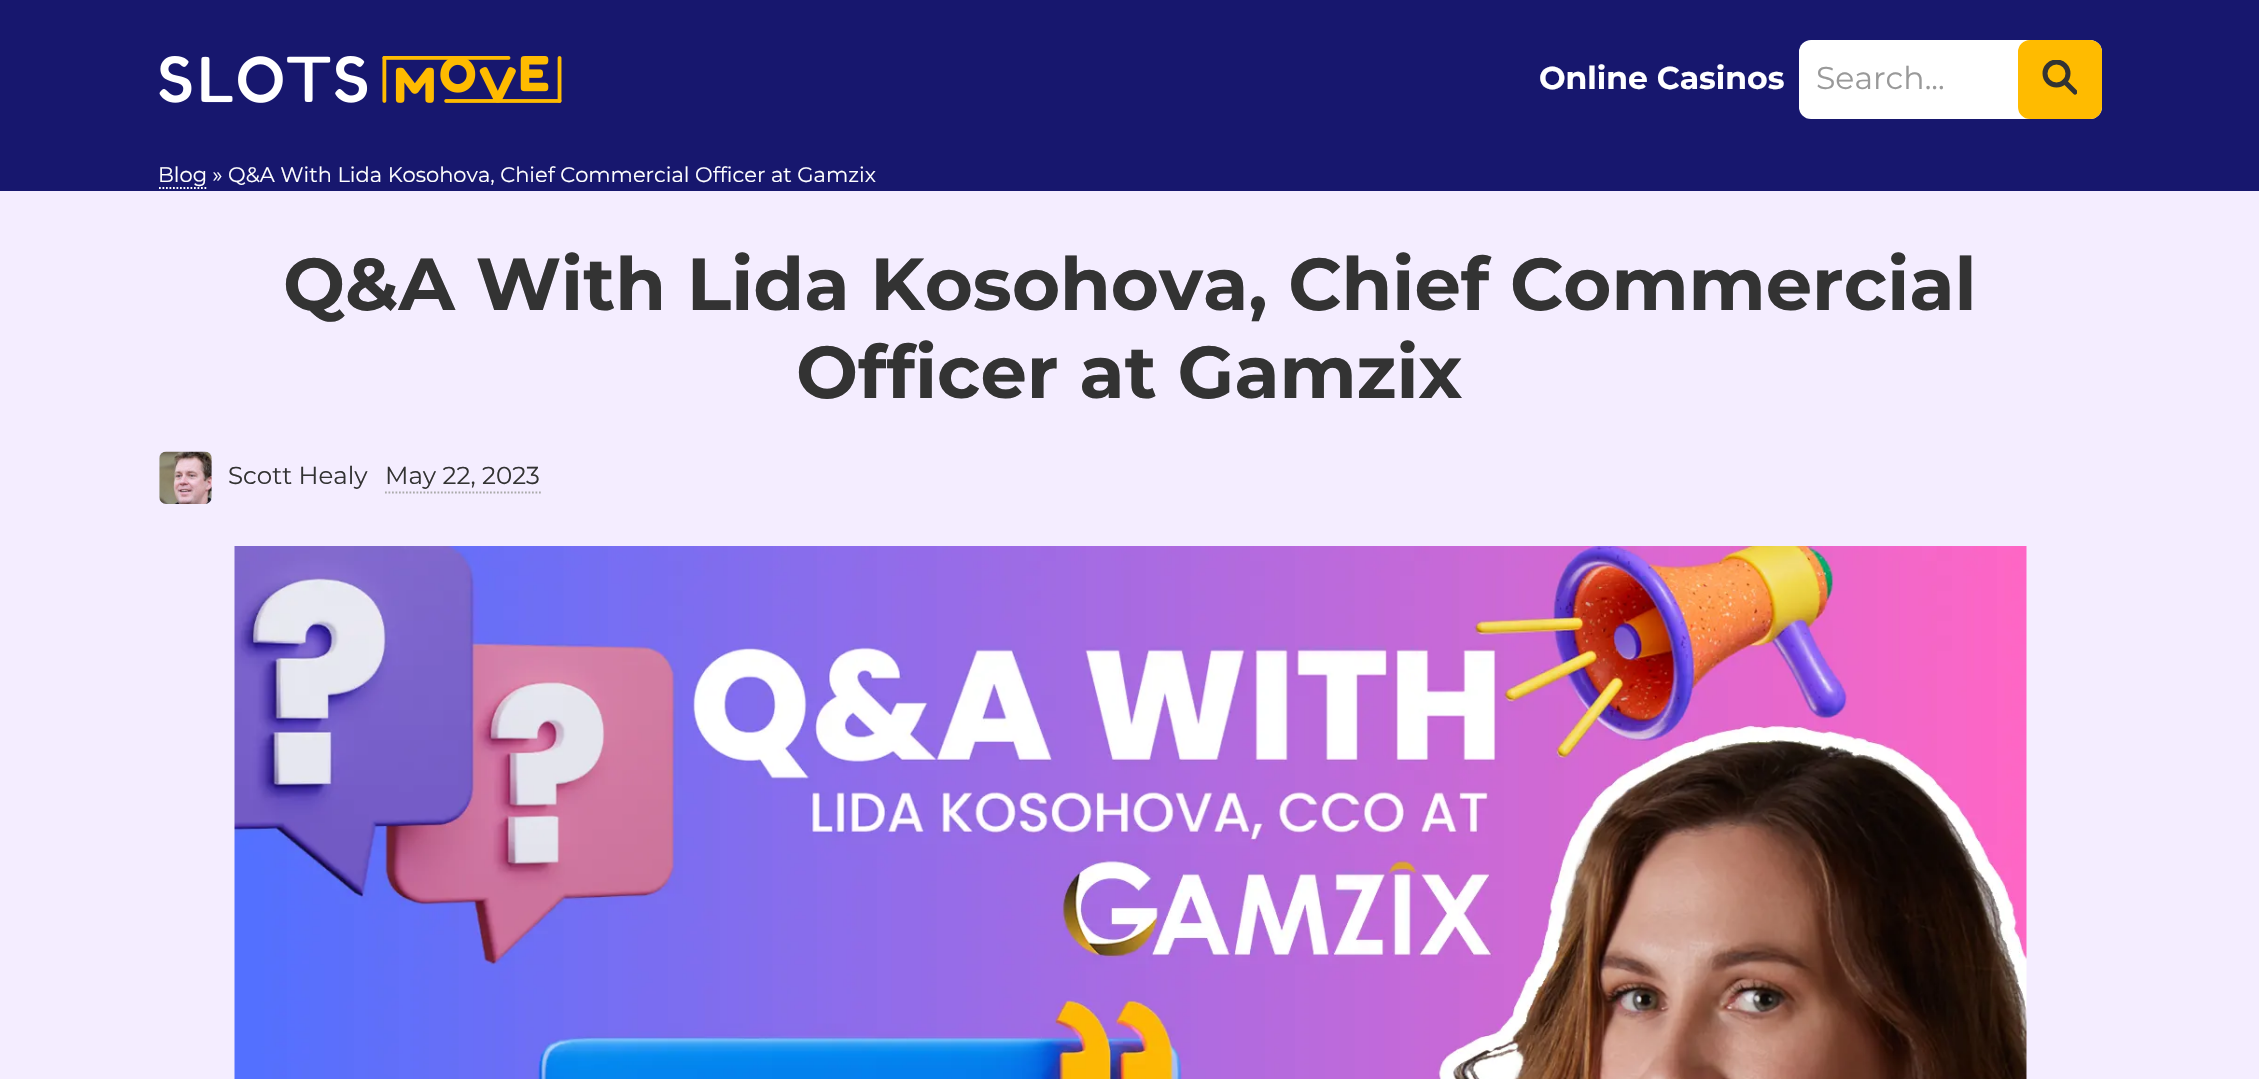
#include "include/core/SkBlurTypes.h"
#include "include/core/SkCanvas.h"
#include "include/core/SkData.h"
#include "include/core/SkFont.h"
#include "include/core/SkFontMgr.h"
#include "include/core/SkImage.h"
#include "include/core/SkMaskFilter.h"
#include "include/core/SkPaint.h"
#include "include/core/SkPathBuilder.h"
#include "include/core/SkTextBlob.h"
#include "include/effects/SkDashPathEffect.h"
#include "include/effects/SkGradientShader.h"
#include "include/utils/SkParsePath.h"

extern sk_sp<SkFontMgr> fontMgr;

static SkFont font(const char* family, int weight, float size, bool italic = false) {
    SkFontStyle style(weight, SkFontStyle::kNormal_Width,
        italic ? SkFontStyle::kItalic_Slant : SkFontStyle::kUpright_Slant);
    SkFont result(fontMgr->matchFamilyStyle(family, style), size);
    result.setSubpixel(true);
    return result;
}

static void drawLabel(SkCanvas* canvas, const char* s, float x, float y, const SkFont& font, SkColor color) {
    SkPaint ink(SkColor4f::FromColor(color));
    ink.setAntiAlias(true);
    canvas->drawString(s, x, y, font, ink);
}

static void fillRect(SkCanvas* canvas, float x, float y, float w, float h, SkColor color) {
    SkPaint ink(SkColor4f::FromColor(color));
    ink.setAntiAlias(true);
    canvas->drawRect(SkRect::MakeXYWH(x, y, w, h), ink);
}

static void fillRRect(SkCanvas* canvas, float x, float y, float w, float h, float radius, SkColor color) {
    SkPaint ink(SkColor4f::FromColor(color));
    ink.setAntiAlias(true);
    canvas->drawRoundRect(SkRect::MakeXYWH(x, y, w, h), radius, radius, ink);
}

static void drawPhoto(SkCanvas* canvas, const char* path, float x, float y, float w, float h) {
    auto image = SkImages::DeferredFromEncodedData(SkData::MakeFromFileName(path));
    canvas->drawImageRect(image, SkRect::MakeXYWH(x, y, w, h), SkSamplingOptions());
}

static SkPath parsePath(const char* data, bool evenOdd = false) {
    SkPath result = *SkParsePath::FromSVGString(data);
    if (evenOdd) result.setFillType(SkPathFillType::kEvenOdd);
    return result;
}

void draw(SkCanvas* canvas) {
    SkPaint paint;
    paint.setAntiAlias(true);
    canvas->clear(0xFFF4EDFF);
    fillRect(canvas, 0, 0, 2259, 191, 0xFF17176E);
    drawPhoto(canvas, "assets/img1.png", 159, 56, 403, 47);
    SkFont font1 = font("Montserrat", 700, 31.5f);
    drawLabel(canvas, "Online Casinos", 1539, 89, font1, 0xFFFFFFFF);
    fillRRect(canvas, 1799, 40, 303, 79, 12, 0xFFFFFFFF);
    fillRRect(canvas, 1799, 47, 219, 65, 5, 0xFFFFFFFF);
    SkFont font2 = font("Montserrat", 400, 31.5f);
    drawLabel(canvas, "Search...", 1816, 89, font2, 0xFF999999);
    paint.setColor(0xFFFFBB00);
    canvas->drawRoundRect(SkRect::MakeXYWH(2019, 41, 82, 77), 11, 11, paint);
    paint.setStroke(true);
    paint.setStrokeWidth(2);
    canvas->drawRoundRect(SkRect::MakeXYWH(2019, 41, 82, 77), 11, 11, paint);
    canvas->save();
    canvas->clipRect(SkRect::MakeXYWH(2042, 60, 35, 35));
    paint.setStrokeWidth(5);
    paint.setColor(0xFF333333);
    canvas->drawCircle(2056.5f, 73.5f, 11.5f, paint);
    paint.setStrokeCap(SkPaint::kRound_Cap);
    paint.setStrokeJoin(SkPaint::kRound_Join);
    canvas->drawPath(parsePath("M2064.5 81.5L2075 92"), paint);
    canvas->restore();
    SkFont font3 = font("Montserrat", 400, 21);
    drawLabel(canvas, "Blog » Q&A With Lida Kosohova, Chief Commercial Officer at Gamzix", 158, 182, font3, 0xFFFFFFFF);
    paint.setStrokeWidth(1.8f);
    paint.setStrokeCap(SkPaint::kButt_Cap);
    paint.setStrokeJoin(SkPaint::kMiter_Join);
    paint.setColor(0xFFFFFFFF);
    paint.setPathEffect(SkDashPathEffect::Make({{1.75f, 1.75f}}, 0));
    canvas->drawPath(parsePath("M159 188H208"), paint);
    paint.setPathEffect(nullptr);
    SkFont font4 = font("Montserrat", 700, 73.5f);
    drawLabel(canvas, "Q&A With Lida Kosohova, Chief Commercial", 283, 310, font4, 0xFF333333);
    drawLabel(canvas, "Officer at Gamzix", 796, 398, font4, 0xFF333333);
    drawPhoto(canvas, "assets/img2.png", 159, 451, 53, 53);
    SkFont font5 = font("Montserrat", 400, 24.5f);
    drawLabel(canvas, "Scott Healy", 228, 484, font5, 0xFF333333);
    drawLabel(canvas, "May 22, 2023", 385, 484, font5, 0xFF333333);
    paint.setColor(0xFFAAAAAA);
    paint.setPathEffect(SkDashPathEffect::Make({{1.75f, 1.75f}}, 0));
    canvas->drawPath(parsePath("M385 492.5H541"), paint);
    paint.setPathEffect(nullptr);
    drawPhoto(canvas, "assets/img3.png", 234, 546, 1793, 533);
}
